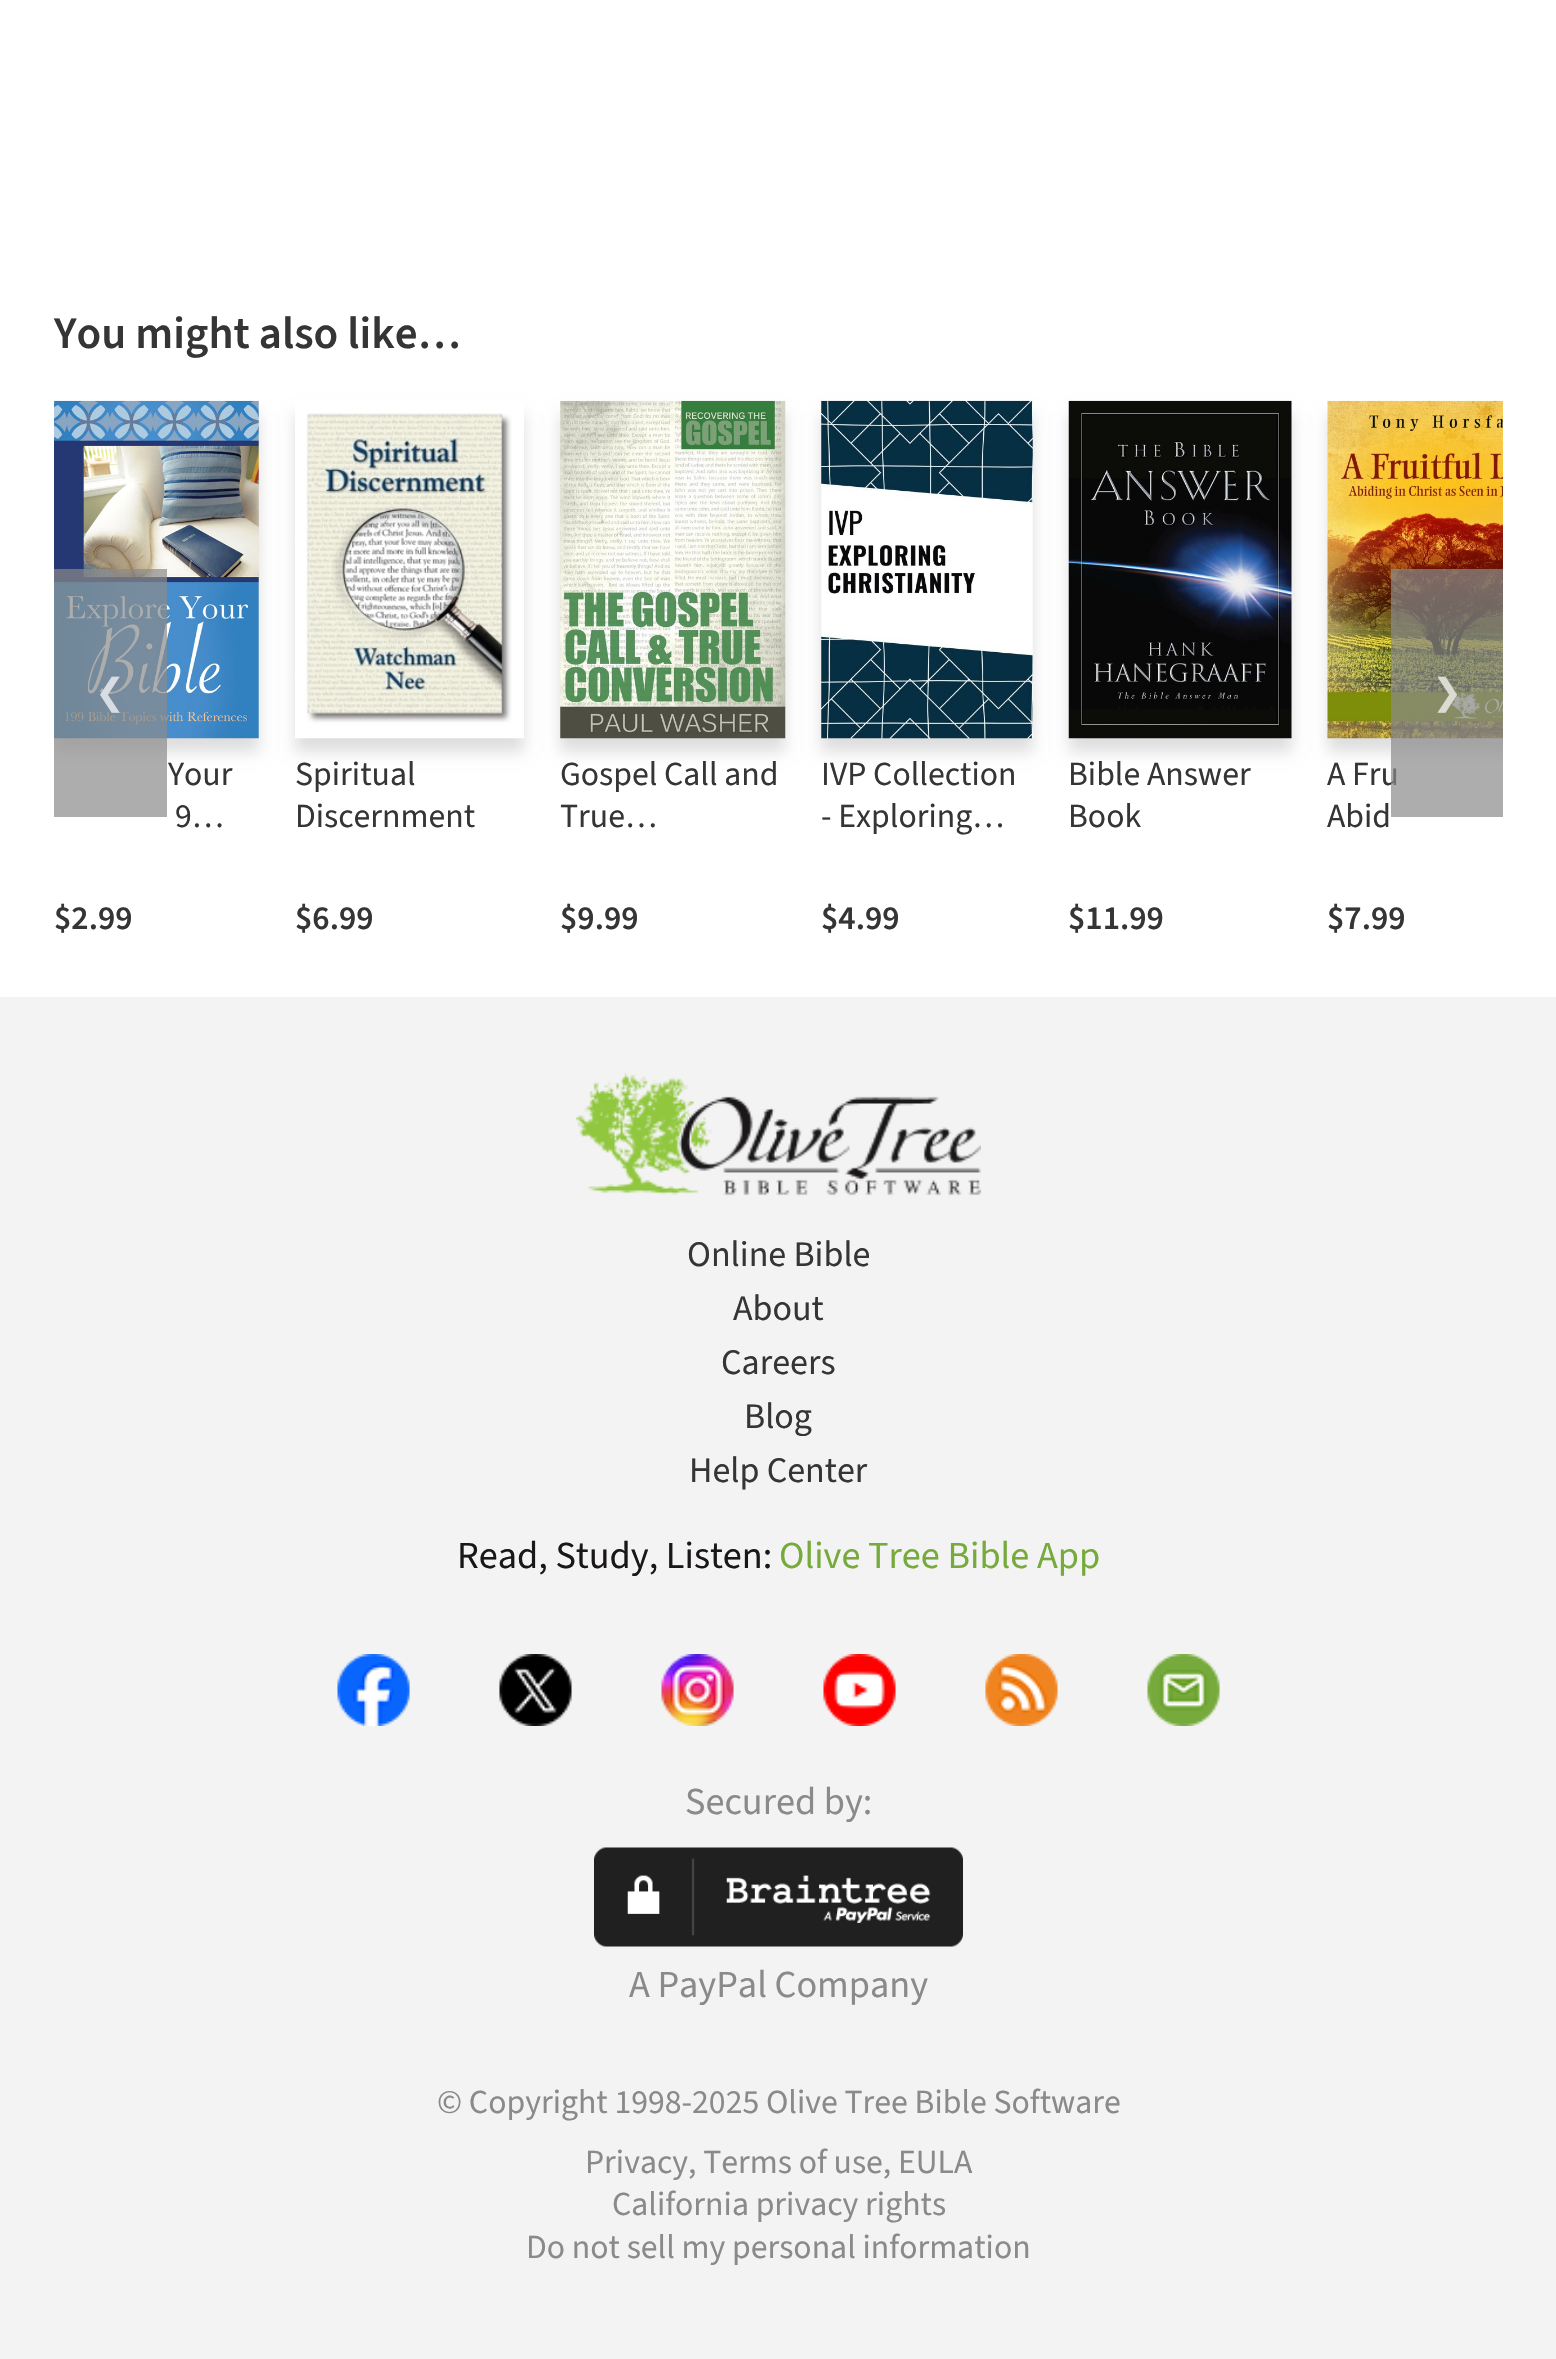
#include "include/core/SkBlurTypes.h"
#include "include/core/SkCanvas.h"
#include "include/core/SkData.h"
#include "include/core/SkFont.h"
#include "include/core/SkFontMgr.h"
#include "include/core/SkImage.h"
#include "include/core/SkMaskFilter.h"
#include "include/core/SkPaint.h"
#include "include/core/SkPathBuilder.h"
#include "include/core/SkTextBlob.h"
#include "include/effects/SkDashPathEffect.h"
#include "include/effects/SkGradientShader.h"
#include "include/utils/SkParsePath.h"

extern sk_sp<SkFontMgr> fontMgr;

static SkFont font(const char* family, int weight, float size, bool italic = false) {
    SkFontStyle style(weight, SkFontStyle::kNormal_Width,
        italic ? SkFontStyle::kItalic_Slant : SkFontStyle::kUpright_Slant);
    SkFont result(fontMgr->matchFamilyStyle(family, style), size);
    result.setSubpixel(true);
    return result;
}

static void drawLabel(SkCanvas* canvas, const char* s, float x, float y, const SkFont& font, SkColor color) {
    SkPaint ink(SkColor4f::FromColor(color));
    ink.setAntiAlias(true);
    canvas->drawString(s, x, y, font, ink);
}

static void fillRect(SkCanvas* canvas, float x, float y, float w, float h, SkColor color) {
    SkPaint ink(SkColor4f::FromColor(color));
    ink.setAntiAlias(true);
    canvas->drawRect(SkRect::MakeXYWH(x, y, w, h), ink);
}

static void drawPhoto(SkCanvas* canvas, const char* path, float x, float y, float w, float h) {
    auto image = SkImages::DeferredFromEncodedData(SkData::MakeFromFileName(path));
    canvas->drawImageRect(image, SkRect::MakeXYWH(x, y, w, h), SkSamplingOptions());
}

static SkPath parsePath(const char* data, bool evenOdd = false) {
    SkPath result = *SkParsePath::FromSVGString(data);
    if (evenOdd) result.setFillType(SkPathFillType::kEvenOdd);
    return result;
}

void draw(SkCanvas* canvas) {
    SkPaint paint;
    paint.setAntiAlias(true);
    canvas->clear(0xFFFFFFFF);
    SkFont font1 = font("Source Sans 3", 600, 45);
    drawLabel(canvas, "You might also like…", 54, 348, font1, 0xFF353535);
    canvas->save();
    canvas->clipRect(SkRect::MakeXYWH(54, 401, 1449, 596));
    paint.setColor(0x21000000);
    paint.setMaskFilter(SkMaskFilter::MakeBlur(kNormal_SkBlurStyle, 7));
    canvas->drawRect(SkRect::MakeXYWH(54, 414, 205, 338), paint);
    paint.setMaskFilter(nullptr);
    canvas->restore();
    drawPhoto(canvas, "assets/img1.png", 54, 400, 205, 339);
    fillRect(canvas, 54, 569, 113, 248, 0xB38A8A8A);
    SkFont font2 = font("DejaVu Sans", 400, 36);
    drawLabel(canvas, "❮", 95, 704, font2, 0xFFD7DDE2);
    canvas->save();
    canvas->clipRect(SkRect::MakeXYWH(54, 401, 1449, 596));
    paint.setMaskFilter(SkMaskFilter::MakeBlur(kNormal_SkBlurStyle, 7));
    canvas->drawRect(SkRect::MakeXYWH(1328, 414, 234, 338), paint);
    paint.setMaskFilter(nullptr);
    canvas->restore();
    drawPhoto(canvas, "assets/img6.png", 1327, 400, 176, 339);
    SkFont font3 = font("Source Sans 3", 400, 33.75f);
    drawLabel(canvas, "A Fru", 1327, 785, font3, 0xFF353535);
    fillRect(canvas, 1391, 569, 112, 248, 0xB38A8A8A);
    drawLabel(canvas, "❯", 1432, 704, font2, 0xFFDADBD2);
    drawLabel(canvas, "Your", 168, 785, font3, 0xFF353535);
    drawLabel(canvas, "9…", 175, 827, font3, 0xFF353535);
    SkFont font4 = font("Source Sans 3", 600, 33.75f);
    drawLabel(canvas, "$2.99", 54, 929, font4, 0xFF353535);
    canvas->save();
    canvas->clipPath(parsePath("M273 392H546V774H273ZM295 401H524V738H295Z", true), true);
    paint.setMaskFilter(SkMaskFilter::MakeBlur(kNormal_SkBlurStyle, 7));
    canvas->drawRect(SkRect::MakeXYWH(295, 414, 229, 338), paint);
    paint.setMaskFilter(nullptr);
    canvas->restore();
    drawPhoto(canvas, "assets/img2.png", 295, 413, 229, 326);
    drawLabel(canvas, "Spiritual", 295, 785, font3, 0xFF353535);
    drawLabel(canvas, "Discernment", 295, 827, font3, 0xFF353535);
    drawLabel(canvas, "$6.99", 295, 929, font4, 0xFF353535);
    paint.setMaskFilter(SkMaskFilter::MakeBlur(kNormal_SkBlurStyle, 7));
    canvas->drawRect(SkRect::MakeXYWH(560, 414, 225, 338), paint);
    paint.setMaskFilter(nullptr);
    drawPhoto(canvas, "assets/img3.png", 560, 400, 226, 339);
    drawLabel(canvas, "Gospel Call and", 560, 785, font3, 0xFF353535);
    drawLabel(canvas, "True…", 560, 827, font3, 0xFF353535);
    drawLabel(canvas, "$9.99", 560, 929, font4, 0xFF353535);
    paint.setMaskFilter(SkMaskFilter::MakeBlur(kNormal_SkBlurStyle, 7));
    canvas->drawRect(SkRect::MakeXYWH(821, 414, 212, 338), paint);
    paint.setMaskFilter(nullptr);
    drawPhoto(canvas, "assets/img4.png", 821, 400, 212, 339);
    drawLabel(canvas, "IVP Collection", 821, 785, font3, 0xFF353535);
    drawLabel(canvas, "- Exploring…", 821, 827, font3, 0xFF353535);
    drawLabel(canvas, "$4.99", 821, 929, font4, 0xFF353535);
    paint.setMaskFilter(SkMaskFilter::MakeBlur(kNormal_SkBlurStyle, 7));
    canvas->drawRect(SkRect::MakeXYWH(1069, 414, 223, 338), paint);
    paint.setMaskFilter(nullptr);
    drawPhoto(canvas, "assets/img5.png", 1068, 400, 224, 339);
    drawLabel(canvas, "Bible Answer", 1068, 785, font3, 0xFF353535);
    drawLabel(canvas, "Book", 1068, 827, font3, 0xFF353535);
    drawLabel(canvas, "$11.99", 1068, 929, font4, 0xFF353535);
    drawLabel(canvas, "Abid", 1327, 827, font3, 0xFF353535);
    drawLabel(canvas, "$7.99", 1327, 929, font4, 0xFF353535);
    fillRect(canvas, 0, 997, 1556, 1362, 0xFFF3F3F3);
    drawPhoto(canvas, "assets/img7.png", 576, 1072, 405, 124);
    SkFont font5 = font("Source Sans 3", 400, 36);
    drawLabel(canvas, "Online Bible", 687, 1266, font5, 0xFF353535);
    drawLabel(canvas, "About", 733, 1320, font5, 0xFF353535);
    drawLabel(canvas, "Careers", 721, 1374, font5, 0xFF353535);
    drawLabel(canvas, "Blog", 744, 1428, font5, 0xFF353535);
    drawLabel(canvas, "Help Center", 689, 1482, font5, 0xFF353535);
    SkFont font6 = font("Source Sans 3", 400, 38.25f);
    drawLabel(canvas, "Read, Study, Listen:", 457, 1568, font6, 0xFF1A1718);
    drawLabel(canvas, "Olive Tree Bible App", 779, 1568, font6, 0xFF77AA3C);
    drawPhoto(canvas, "assets/img8.png", 337, 1654, 73, 72);
    drawPhoto(canvas, "assets/img9.png", 499, 1654, 73, 72);
    drawPhoto(canvas, "assets/img10.png", 661, 1654, 73, 72);
    drawPhoto(canvas, "assets/img11.png", 823, 1654, 73, 72);
    drawPhoto(canvas, "assets/img12.png", 985, 1654, 73, 72);
    drawPhoto(canvas, "assets/img13.png", 1147, 1654, 73, 72);
    drawLabel(canvas, "Secured by:", 685, 1814, font6, 0xFF8A8A8A);
    drawPhoto(canvas, "assets/img14.png", 594, 1847, 369, 100);
    drawLabel(canvas, "A PayPal Company", 629, 1997, font6, 0xFF8A8A8A);
    drawLabel(canvas, "© Copyright 1998-2025 Olive Tree Bible Software", 437, 2113, font3, 0xFF8A8A8A);
    drawLabel(canvas, "Privacy, Terms of use, EULA", 585, 2173, font3, 0xFF8A8A8A);
    drawLabel(canvas, "California privacy rights", 612, 2215, font3, 0xFF8A8A8A);
    drawLabel(canvas, "Do not sell my personal information", 526, 2258, font3, 0xFF8A8A8A);
}
